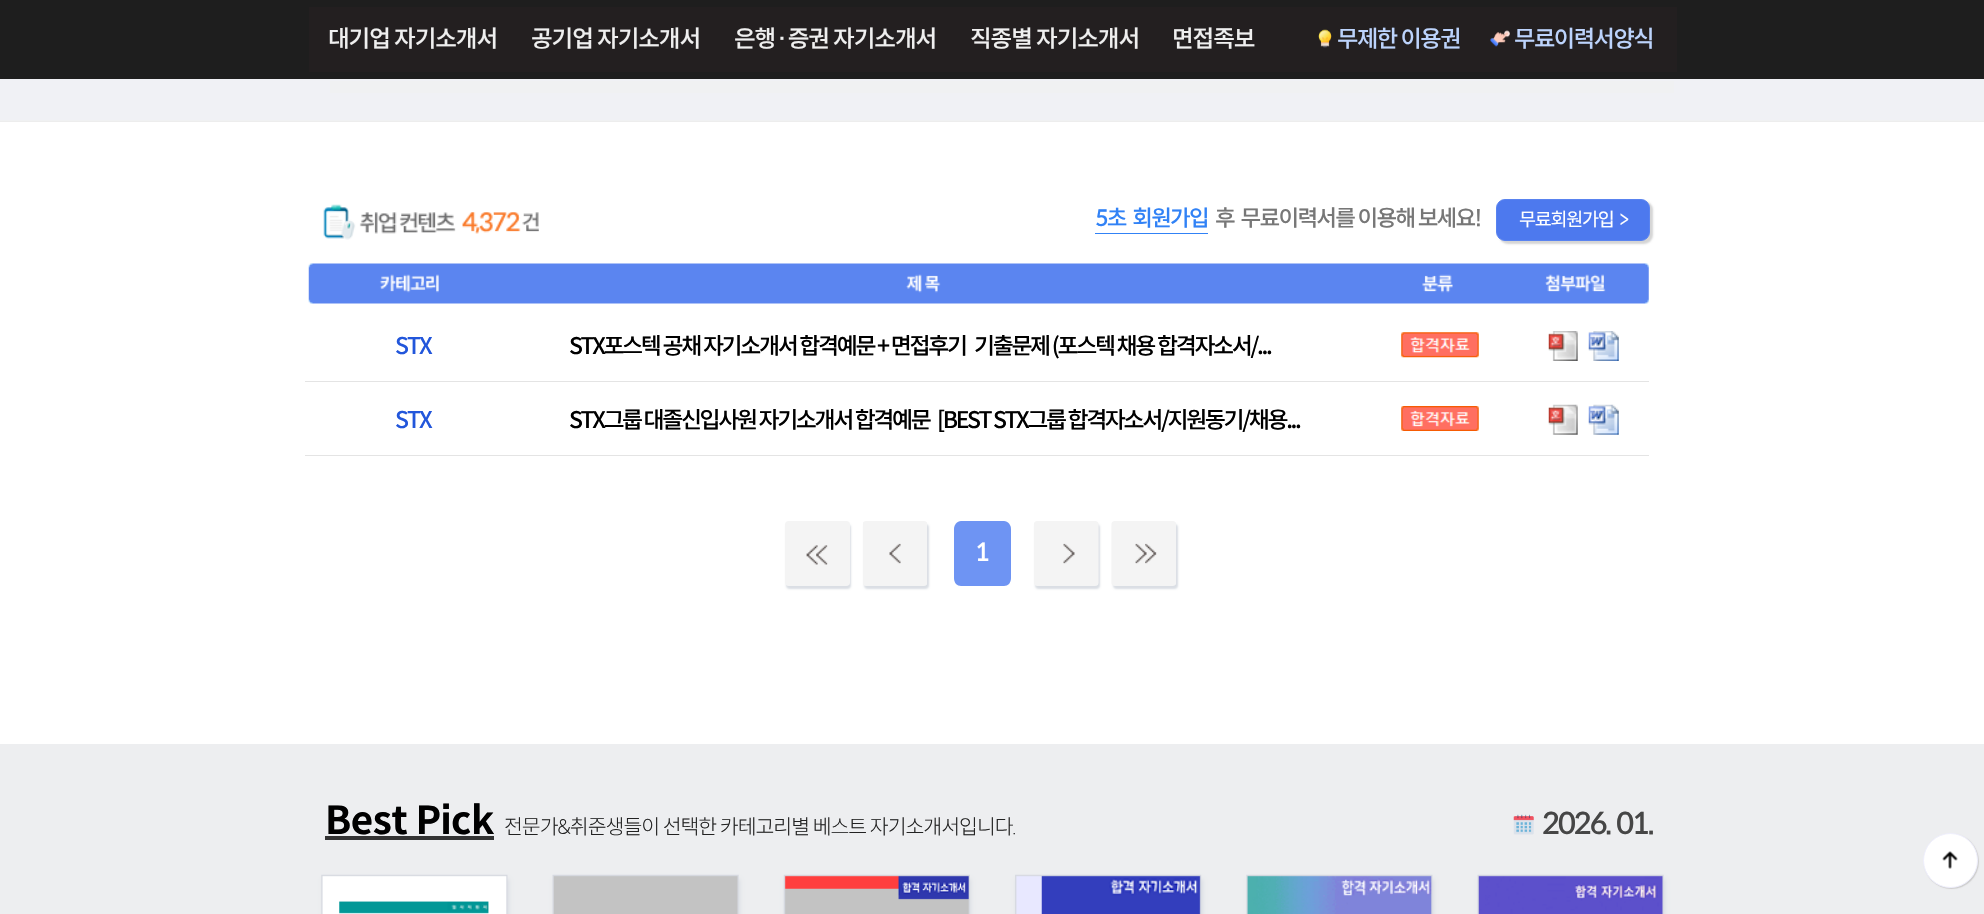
#include "include/core/SkBlurTypes.h"
#include "include/core/SkCanvas.h"
#include "include/core/SkData.h"
#include "include/core/SkFont.h"
#include "include/core/SkFontMgr.h"
#include "include/core/SkImage.h"
#include "include/core/SkMaskFilter.h"
#include "include/core/SkPaint.h"
#include "include/core/SkPathBuilder.h"
#include "include/core/SkTextBlob.h"
#include "include/effects/SkDashPathEffect.h"
#include "include/effects/SkGradientShader.h"
#include "include/utils/SkParsePath.h"

extern sk_sp<SkFontMgr> fontMgr;

static SkFont font(const char* family, int weight, float size, bool italic = false) {
    SkFontStyle style(weight, SkFontStyle::kNormal_Width,
        italic ? SkFontStyle::kItalic_Slant : SkFontStyle::kUpright_Slant);
    SkFont result(fontMgr->matchFamilyStyle(family, style), size);
    result.setSubpixel(true);
    return result;
}

static void drawTracked(SkCanvas* canvas, const char* s, float x, float y, const SkFont& font, const SkPaint& ink, float letter, float word) {
    std::vector<SkGlyphID> glyphs(font.countText(s, strlen(s), SkTextEncoding::kUTF8));
    std::vector<float> xs(glyphs.size());
    font.textToGlyphs(s, strlen(s), SkTextEncoding::kUTF8, glyphs);
    font.getXPos(glyphs, xs, x);
    float extra = 0;
    for (size_t i = 0; i < glyphs.size(); i++) {
        xs[i] += extra;
        extra += letter + word * (glyphs[i] == font.unicharToGlyph(' '));
    }
    canvas->drawTextBlob(SkTextBlob::MakeFromPosHGlyphs(glyphs, xs, y, font), 0, 0, ink);
}

static void fillRect(SkCanvas* canvas, float x, float y, float w, float h, SkColor color) {
    SkPaint ink(SkColor4f::FromColor(color));
    ink.setAntiAlias(true);
    canvas->drawRect(SkRect::MakeXYWH(x, y, w, h), ink);
}

static void drawPhoto(SkCanvas* canvas, const char* path, float x, float y, float w, float h) {
    auto image = SkImages::DeferredFromEncodedData(SkData::MakeFromFileName(path));
    canvas->drawImageRect(image, SkRect::MakeXYWH(x, y, w, h), SkSamplingOptions());
}

static SkPath parsePath(const char* data, bool evenOdd = false) {
    SkPath result = *SkParsePath::FromSVGString(data);
    if (evenOdd) result.setFillType(SkPathFillType::kEvenOdd);
    return result;
}

void draw(SkCanvas* canvas) {
    SkPaint paint;
    paint.setAntiAlias(true);
    canvas->clear(0xFFFFFFFF);
    fillRect(canvas, 0, 0, 1984, 79, 0xFF1E1E1E);
    fillRect(canvas, 309, 7, 1368, 65, 0xFF231F20);
    SkFont font1 = font("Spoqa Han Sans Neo", 500, 23.6f);
    paint.setColor(0xFFEFEFEF);
    drawTracked(canvas, "대기업 자기소개서", 328, 47, font1, paint, -1.1f, 0);
    drawTracked(canvas, "공기업 자기소개서", 531, 47, font1, paint, -1.1f, 0);
    drawTracked(canvas, "은행·증권 자기소개서", 734, 47, font1, paint, -1.1f, 0);
    drawTracked(canvas, "직종별 자기소개서", 970, 47, font1, paint, -1.1f, 0);
    drawTracked(canvas, "면접족보", 1172, 47, font1, paint, -1.1f, 0);
    drawPhoto(canvas, "assets/img1.png", 1318, 29, 14, 19);
    SkFont font2 = font("Spoqa Han Sans Neo", 500, 23.25f);
    paint.setColor(0xFFBCD3FC);
    drawTracked(canvas, "무제한 이용권", 1337, 47, font2, paint, -1.5f, 0);
    drawPhoto(canvas, "assets/img2.png", 1490, 30, 20, 17);
    drawTracked(canvas, "무료이력서양식", 1514, 47, font2, paint, -1.5f, 0);
    fillRect(canvas, 0, 79, 1984, 41, 0xFFF0F1F5);
    fillRect(canvas, 330, 81, 1344, 12, 0xFFF0F1F2);
    fillRect(canvas, 0, 120, 1984, 1, 0xFFF0F1F2);
    fillRect(canvas, 0, 121, 1984, 1, 0xFFEDEDED);
    drawPhoto(canvas, "assets/img3.png", 323, 204, 216, 36);
    SkFont font3 = font("Spoqa Han Sans Neo", 500, 22.5f);
    paint.setColor(0xFF3182F6);
    drawTracked(canvas, "5초  회원가입", 1095, 226, font3, paint, -1.75f, 0);
    fillRect(canvas, 1095, 233, 113, 1, 0xFF3182F6);
    paint.setColor(0xFF777777);
    drawTracked(canvas, "후  무료이력서를 이용해 보세요!", 1215, 226, font3, paint, -1.75f, 0);
    paint.setColor(0xFFD5D5D5);
    paint.setMaskFilter(SkMaskFilter::MakeBlur(kNormal_SkBlurStyle, 1));
    canvas->drawRoundRect(SkRect::MakeXYWH(1499, 201, 154, 43), 9, 9, paint);
    paint.setMaskFilter(nullptr);
    paint.setColor(0xFF4D79EE);
    canvas->drawRoundRect(SkRect::MakeXYWH(1496.5f, 199.5f, 153, 41), 8.5f, 8.5f, paint);
    paint.setStroke(true);
    paint.setStrokeWidth(1);
    paint.setColor(0xFF5983F0);
    canvas->drawRoundRect(SkRect::MakeXYWH(1496.5f, 199.5f, 153, 41), 8.5f, 8.5f, paint);
    SkFont font4 = font("Spoqa Han Sans Neo", 400, 18.5f);
    paint.setStroke(false);
    paint.setColor(0xFFFFFFFF);
    drawTracked(canvas, "무료회원가입  >", 1519, 226, font4, paint, -1.25f, 0);
    drawPhoto(canvas, "assets/img4.png", 308, 263, 1341, 41);
    fillRect(canvas, 305, 381, 1344, 1, 0xFFE4E4E4);
    SkFont font5 = font("Noto Sans KR", 500, 23);
    paint.setColor(0xFF2256DB);
    drawTracked(canvas, "STX", 395, 354, font5, paint, -2, 0);
    SkFont font6 = font("Noto Sans KR", 500, 22.9f);
    paint.setColor(0xFF000000);
    drawTracked(canvas, "STX포스텍 공채 자기소개서 합격예문 + 면접후기", 569, 354, font6, paint, -2.38f, 0.25f);
    drawTracked(canvas, "기출문제 (포스텍 채용 합격자소서/...", 974, 354, font6, paint, -2.38f, 0.25f);
    drawPhoto(canvas, "assets/img5.png", 1401, 332, 78, 26);
    drawPhoto(canvas, "assets/img6.png", 1548, 331, 30, 30);
    drawPhoto(canvas, "assets/img7.png", 1588, 331, 31, 30);
    fillRect(canvas, 305, 455, 1344, 1, 0xFFE4E4E4);
    paint.setColor(0xFF2256DB);
    drawTracked(canvas, "STX", 395, 428, font5, paint, -2, 0);
    paint.setColor(0xFF000000);
    drawTracked(canvas, "STX그룹 대졸신입사원 자기소개서 합격예문", 569, 428, font6, paint, -2.38f, 0);
    drawTracked(canvas, "[BEST STX그룹 합격자소서/지원동기/채용...", 937, 428, font6, paint, -2.38f, 0);
    drawPhoto(canvas, "assets/img8.png", 1401, 406, 78, 25);
    drawPhoto(canvas, "assets/img9.png", 1548, 404, 30, 31);
    drawPhoto(canvas, "assets/img10.png", 1588, 404, 31, 31);
    paint.setColor(0xFFDADEE4);
    paint.setMaskFilter(SkMaskFilter::MakeBlur(kNormal_SkBlurStyle, 1));
    canvas->drawRoundRect(SkRect::MakeXYWH(786, 524, 65, 65), 4, 4, paint);
    paint.setMaskFilter(nullptr);
    drawPhoto(canvas, "assets/img11.png", 785, 521, 65, 65);
    paint.setMaskFilter(SkMaskFilter::MakeBlur(kNormal_SkBlurStyle, 1));
    canvas->drawRoundRect(SkRect::MakeXYWH(864, 524, 65, 65), 4, 4, paint);
    paint.setMaskFilter(nullptr);
    drawPhoto(canvas, "assets/img12.png", 863, 521, 64, 65);
    paint.setColor(0xFF6E94F3);
    canvas->drawPath(parsePath("M961 521H1004C1008 521 1011 525 1011 529V578C1011 583 1008 586 1004 586H961C957 586 954 583 954 578V529C954 525 957 521 961 521Z"), paint);
    SkFont font7 = font("Spoqa Han Sans Neo", 500, 25);
    paint.setColor(0xFFFFFFFF);
    drawTracked(canvas, "1", 975, 561, font7, paint, -1.1f, 0);
    paint.setColor(0xFFDADEE4);
    paint.setMaskFilter(SkMaskFilter::MakeBlur(kNormal_SkBlurStyle, 1));
    canvas->drawRoundRect(SkRect::MakeXYWH(1035, 524, 65, 65), 4, 4, paint);
    paint.setMaskFilter(nullptr);
    drawPhoto(canvas, "assets/img13.png", 1034, 521, 65, 65);
    paint.setMaskFilter(SkMaskFilter::MakeBlur(kNormal_SkBlurStyle, 1));
    canvas->drawRoundRect(SkRect::MakeXYWH(1113, 524, 65, 65), 4, 4, paint);
    paint.setMaskFilter(nullptr);
    drawPhoto(canvas, "assets/img14.png", 1111, 521, 65, 65);
    fillRect(canvas, 0, 744, 1984, 170, 0xFFEDEEF0);
    paint.setColor(0xFFCECECE);
    paint.setMaskFilter(SkMaskFilter::MakeBlur(kNormal_SkBlurStyle, 0.5f));
    canvas->drawRoundRect(SkRect::MakeXYWH(1924, 834, 55, 55), 27.5f, 27.5f, paint);
    paint.setMaskFilter(nullptr);
    paint.setColor(0xFFFFFFFF);
    canvas->drawCircle(1950.5f, 860.5f, 27, paint);
    paint.setStroke(true);
    paint.setColor(0xFFEFEFFD);
    canvas->drawCircle(1950.5f, 860.5f, 27, paint);
    drawPhoto(canvas, "assets/img15.png", 1942, 851, 16, 18);
    SkFont font8 = font("Spoqa Han Sans Neo", 700, 38.5f);
    paint.setStroke(false);
    paint.setColor(0xFF000000);
    drawTracked(canvas, "Best Pick", 325, 834, font8, paint, -0.4f, 0);
    fillRect(canvas, 325, 836, 169, 4, 0xFF333333);
    SkFont font9 = font("Spoqa Han Sans Neo", 300, 20.5f);
    paint.setColor(0xFF222222);
    drawTracked(canvas, "전문가&취준생들이 선택한 카테고리별 베스트 자기소개서입니다.", 504, 834, font9, paint, -1, 0);
    drawPhoto(canvas, "assets/img16.png", 1513, 814, 21, 21);
    SkFont font10 = font("Spoqa Han Sans Neo", 500, 30);
    paint.setColor(0xFF464646);
    drawTracked(canvas, "2026. 01.", 1542, 834, font10, paint, -2, 0);
    paint.setColor(0xFFDADEE4);
    paint.setMaskFilter(SkMaskFilter::MakeBlur(kNormal_SkBlurStyle, 2));
    canvas->drawRect(SkRect::MakeXYWH(323, 879, 186, 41), paint);
    paint.setMaskFilter(nullptr);
    paint.setMaskFilter(SkMaskFilter::MakeBlur(kNormal_SkBlurStyle, 2));
    canvas->drawRect(SkRect::MakeXYWH(554, 879, 186, 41), paint);
    paint.setMaskFilter(nullptr);
    paint.setMaskFilter(SkMaskFilter::MakeBlur(kNormal_SkBlurStyle, 2));
    canvas->drawRect(SkRect::MakeXYWH(785, 879, 186, 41), paint);
    paint.setMaskFilter(nullptr);
    paint.setMaskFilter(SkMaskFilter::MakeBlur(kNormal_SkBlurStyle, 2));
    canvas->drawRect(SkRect::MakeXYWH(1016, 879, 187, 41), paint);
    paint.setMaskFilter(nullptr);
    paint.setMaskFilter(SkMaskFilter::MakeBlur(kNormal_SkBlurStyle, 2));
    canvas->drawRect(SkRect::MakeXYWH(1248, 879, 186, 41), paint);
    paint.setMaskFilter(nullptr);
    paint.setMaskFilter(SkMaskFilter::MakeBlur(kNormal_SkBlurStyle, 2));
    canvas->drawRect(SkRect::MakeXYWH(1479, 879, 186, 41), paint);
    paint.setMaskFilter(nullptr);
    drawPhoto(canvas, "assets/img17.png", 321, 874, 187, 40);
    drawPhoto(canvas, "assets/img18.png", 552, 874, 187, 40);
    drawPhoto(canvas, "assets/img19.png", 783, 874, 187, 40);
    drawPhoto(canvas, "assets/img20.png", 1015, 874, 187, 40);
    drawPhoto(canvas, "assets/img21.png", 1246, 874, 187, 40);
    drawPhoto(canvas, "assets/img22.png", 1477, 874, 187, 40);
}
